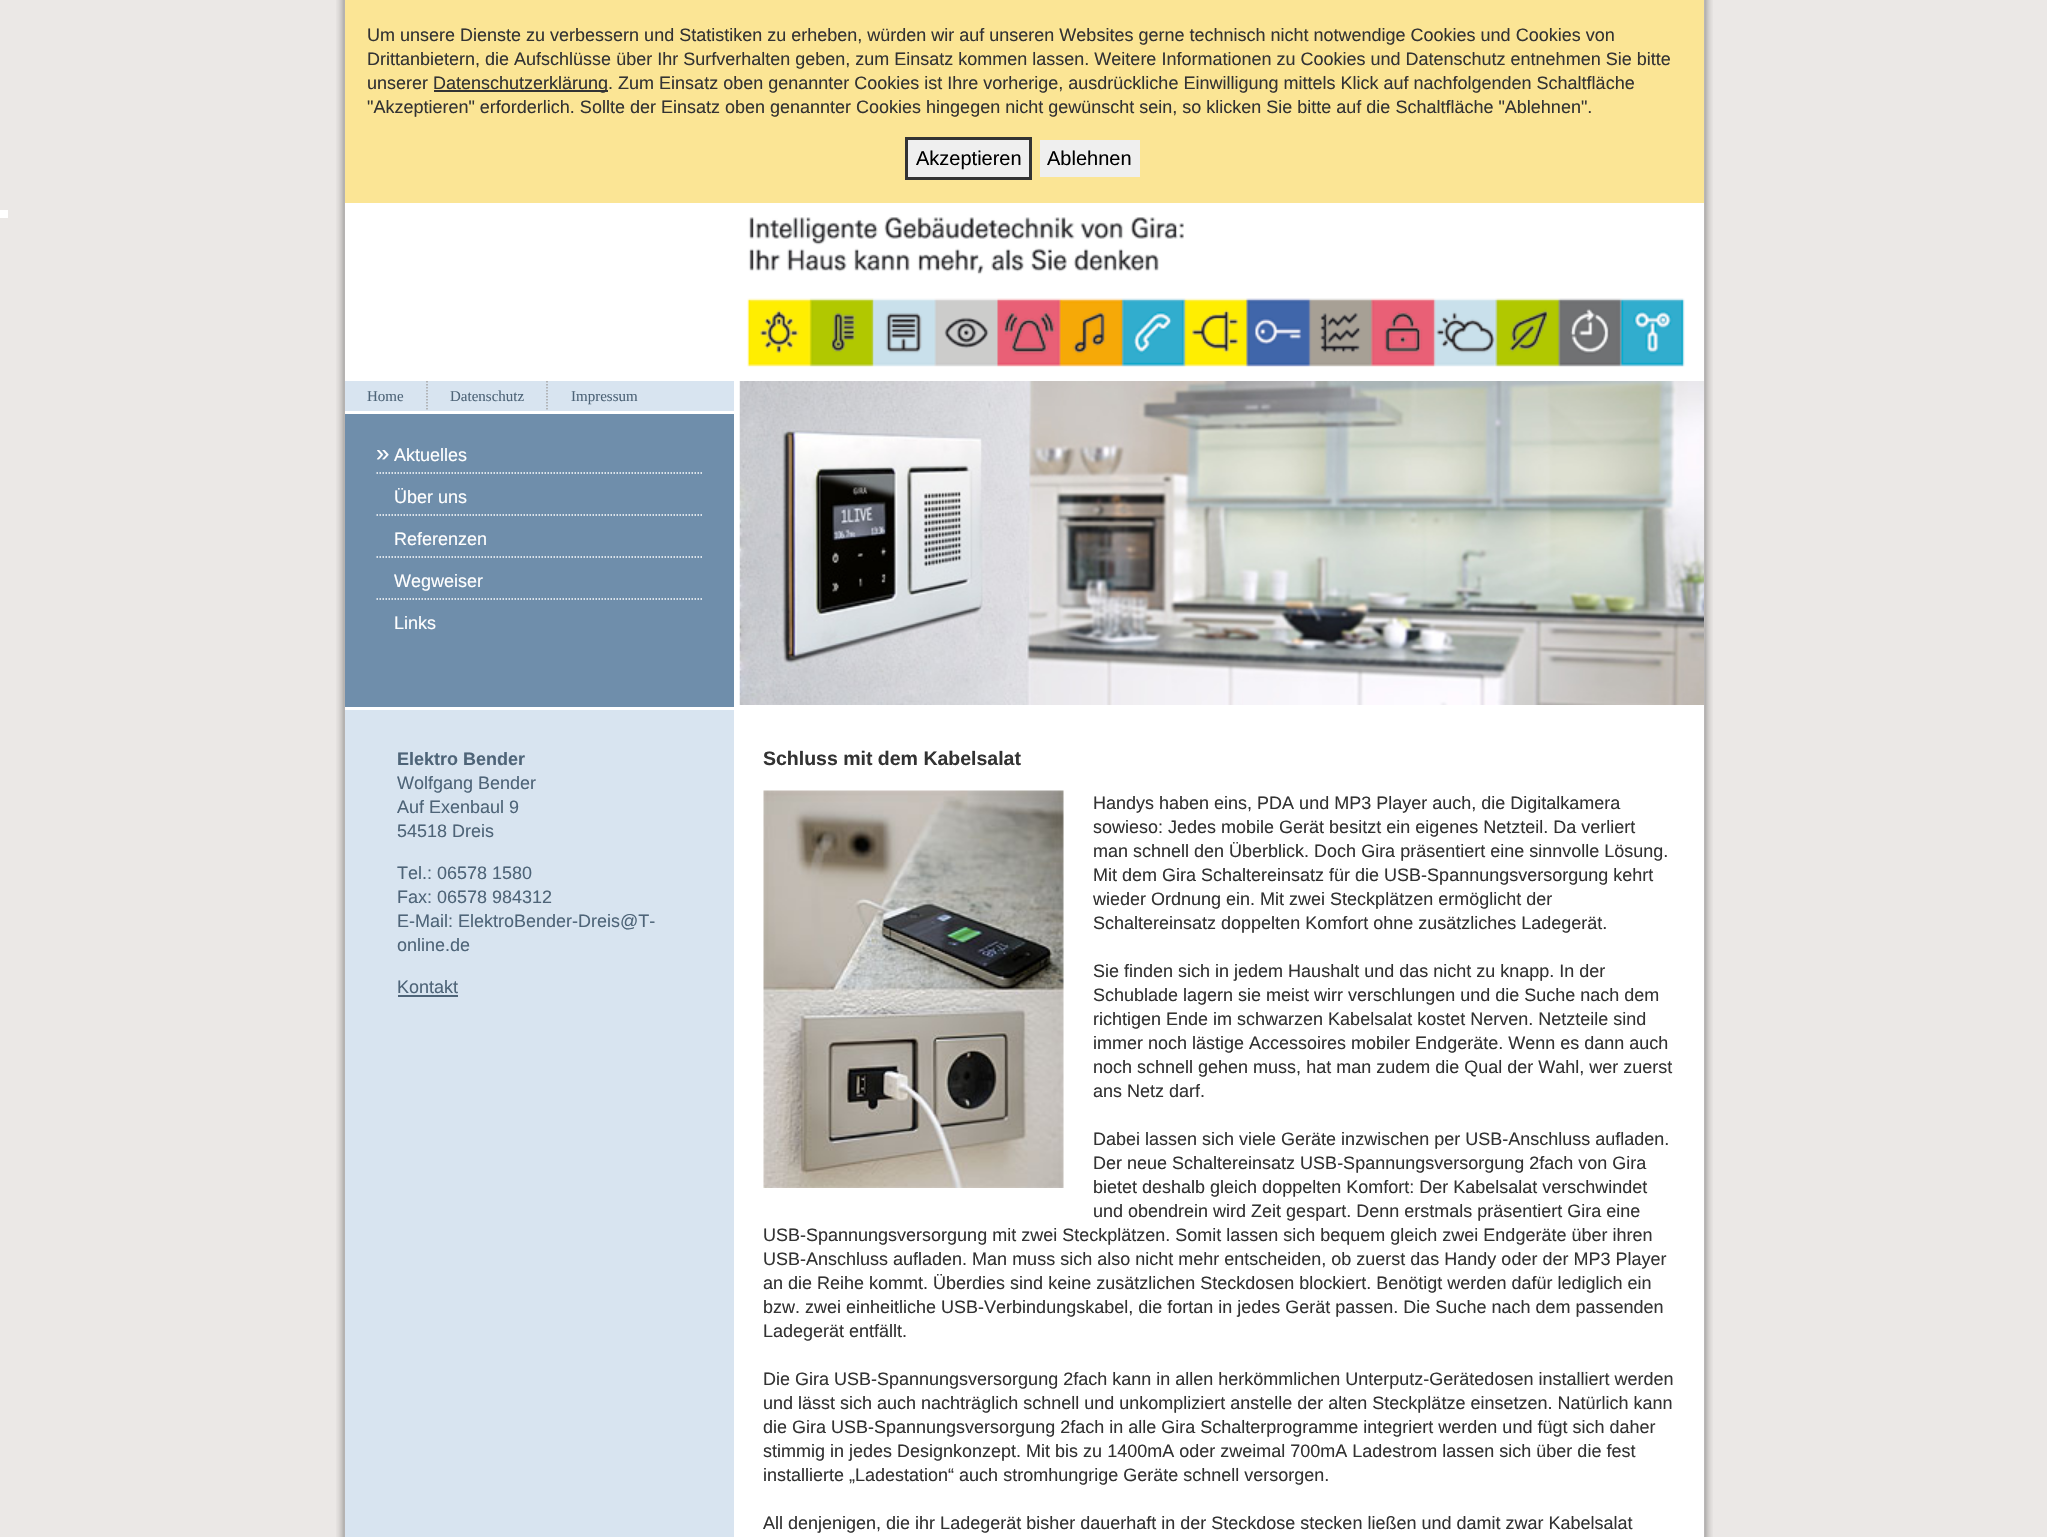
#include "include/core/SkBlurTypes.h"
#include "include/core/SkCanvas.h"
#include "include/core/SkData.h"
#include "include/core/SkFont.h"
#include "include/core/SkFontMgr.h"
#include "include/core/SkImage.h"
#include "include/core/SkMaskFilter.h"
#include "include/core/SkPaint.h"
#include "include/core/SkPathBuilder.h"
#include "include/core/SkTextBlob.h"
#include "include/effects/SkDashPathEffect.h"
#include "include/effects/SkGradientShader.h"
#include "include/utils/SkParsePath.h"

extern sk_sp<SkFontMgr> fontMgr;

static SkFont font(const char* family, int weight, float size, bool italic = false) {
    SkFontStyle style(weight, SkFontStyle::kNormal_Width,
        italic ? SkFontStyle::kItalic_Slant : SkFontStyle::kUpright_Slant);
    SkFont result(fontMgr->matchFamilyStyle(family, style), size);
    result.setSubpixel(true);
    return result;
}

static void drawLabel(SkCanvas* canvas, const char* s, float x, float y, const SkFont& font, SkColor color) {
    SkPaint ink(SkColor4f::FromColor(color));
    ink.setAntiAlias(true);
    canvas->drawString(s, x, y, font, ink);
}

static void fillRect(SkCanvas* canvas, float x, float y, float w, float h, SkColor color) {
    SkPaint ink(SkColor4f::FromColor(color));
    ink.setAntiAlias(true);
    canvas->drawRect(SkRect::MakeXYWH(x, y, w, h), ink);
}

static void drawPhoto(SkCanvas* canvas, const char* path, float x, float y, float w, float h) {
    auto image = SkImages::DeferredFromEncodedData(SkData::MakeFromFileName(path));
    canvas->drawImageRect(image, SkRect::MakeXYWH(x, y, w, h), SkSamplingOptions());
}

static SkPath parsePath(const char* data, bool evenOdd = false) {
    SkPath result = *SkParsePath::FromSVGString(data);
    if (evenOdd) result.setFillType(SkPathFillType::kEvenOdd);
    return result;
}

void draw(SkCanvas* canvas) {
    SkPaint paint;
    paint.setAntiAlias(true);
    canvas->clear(0xFFEBE8E6);
    fillRect(canvas, 0, 210, 8, 8, 0xFFFFFFFF);
    drawPhoto(canvas, "assets/img1.png", 336, 0, 1377, 1537);
    fillRect(canvas, 734, 710, 970, 827, 0xFFFFFFFF);
    fillRect(canvas, 345, 0, 1359, 203, 0xFFFBE595);
    SkFont font1 = font("Liberation Sans", 400, 18);
    drawLabel(canvas, "Um unsere Dienste zu verbessern und Statistiken zu erheben, würden wir auf unseren Websites gerne technisch nicht notwendige Cookies und Cookies von", 367, 41, font1, 0xFF333333);
    drawLabel(canvas, "Drittanbietern, die Aufschlüsse über Ihr Surfverhalten geben, zum Einsatz kommen lassen. Weitere Informationen zu Cookies und Datenschutz entnehmen Sie bitte", 367, 65, font1, 0xFF333333);
    drawLabel(canvas, "unserer", 367, 89, font1, 0xFF333333);
    fillRect(canvas, 434, 90, 174, 2, 0xFF333333);
    drawLabel(canvas, "Datenschutzerklärung. Zum Einsatz oben genannter Cookies ist Ihre vorherige, ausdrückliche Einwilligung mittels Klick auf nachfolgenden Schaltfläche", 433, 89, font1, 0xFF333333);
    drawLabel(canvas, "\"Akzeptieren\" erforderlich. Sollte der Einsatz oben genannter Cookies hingegen nicht gewünscht sein, so klicken Sie bitte auf die Schaltfläche \"Ablehnen\".", 367, 113, font1, 0xFF333333);
    paint.setColor(0xFFEFEFEF);
    canvas->drawRect(SkRect::MakeXYWH(906.5f, 138.5f, 124, 40), paint);
    paint.setStroke(true);
    paint.setStrokeWidth(3);
    paint.setColor(0xFF333333);
    canvas->drawRect(SkRect::MakeXYWH(906.5f, 138.5f, 124, 40), paint);
    SkFont font2 = font("Liberation Sans", 400, 20);
    drawLabel(canvas, "Akzeptieren", 916, 165, font2, 0xFF000000);
    fillRect(canvas, 1040, 140, 100, 37, 0xFFEFEFEF);
    drawLabel(canvas, "Ablehnen", 1047, 165, font2, 0xFF000000);
    fillRect(canvas, 345, 203, 1359, 507, 0xFFFFFFFF);
    drawPhoto(canvas, "assets/img2.png", 747, 217, 938, 150);
    fillRect(canvas, 345, 381, 389, 30, 0xFFD8E4F0);
    paint.setStrokeWidth(1.5f);
    paint.setColor(0xFFA6A6A6);
    paint.setPathEffect(SkDashPathEffect::Make({{1.5f, 1.5f}}, 0));
    canvas->drawPath(parsePath("M427 381V411"), paint);
    paint.setPathEffect(nullptr);
    SkFont font3 = font("Liberation Serif", 400, 15);
    drawLabel(canvas, "Home", 367, 401, font3, 0xFF4E6478);
    paint.setPathEffect(SkDashPathEffect::Make({{1.5f, 1.5f}}, 0));
    canvas->drawPath(parsePath("M547 381V411"), paint);
    paint.setPathEffect(nullptr);
    drawLabel(canvas, "Datenschutz", 450, 401, font3, 0xFF4E6478);
    drawLabel(canvas, "Impressum", 571, 401, font3, 0xFF4E6478);
    drawPhoto(canvas, "assets/img3.png", 739, 381, 965, 324);
    fillRect(canvas, 345, 414, 389, 293, 0xFF6F8EAB);
    paint.setColor(0xFFFFFFFF);
    paint.setPathEffect(SkDashPathEffect::Make({{1.5f, 1.5f}}, 0));
    canvas->drawPath(parsePath("M376.5 473H702"), paint);
    paint.setPathEffect(nullptr);
    SkFont font4 = font("Liberation Sans", 400, 24);
    drawLabel(canvas, "»", 376, 461, font4, 0xFFFFFFFF);
    drawLabel(canvas, "Aktuelles", 394, 461, font1, 0xFFFFFFFF);
    paint.setPathEffect(SkDashPathEffect::Make({{1.5f, 1.5f}}, 0));
    canvas->drawPath(parsePath("M376.5 515H702"), paint);
    paint.setPathEffect(nullptr);
    drawLabel(canvas, "Über uns", 394, 503, font1, 0xFFFFFFFF);
    paint.setPathEffect(SkDashPathEffect::Make({{1.5f, 1.5f}}, 0));
    canvas->drawPath(parsePath("M376.5 557H702"), paint);
    paint.setPathEffect(nullptr);
    drawLabel(canvas, "Referenzen", 394, 545, font1, 0xFFFFFFFF);
    paint.setPathEffect(SkDashPathEffect::Make({{1.5f, 1.5f}}, 0));
    canvas->drawPath(parsePath("M376.5 599H702"), paint);
    paint.setPathEffect(nullptr);
    drawLabel(canvas, "Wegweiser", 394, 587, font1, 0xFFFFFFFF);
    drawLabel(canvas, "Links", 394, 629, font1, 0xFFFFFFFF);
    fillRect(canvas, 345, 710, 389, 827, 0xFFD8E4F0);
    SkFont font5 = font("Liberation Sans", 700, 19.5f);
    drawLabel(canvas, "Schluss mit dem Kabelsalat", 763, 765, font5, 0xFF333333);
    drawPhoto(canvas, "assets/img4.png", 763, 790, 301, 398);
    drawLabel(canvas, "Handys haben eins, PDA und MP3 Player auch, die Digitalkamera", 1093, 809, font1, 0xFF333333);
    drawLabel(canvas, "sowieso: Jedes mobile Gerät besitzt ein eigenes Netzteil. Da verliert", 1093, 833, font1, 0xFF333333);
    drawLabel(canvas, "man schnell den Überblick. Doch Gira präsentiert eine sinnvolle Lösung.", 1093, 857, font1, 0xFF333333);
    drawLabel(canvas, "Mit dem Gira Schaltereinsatz für die USB-Spannungsversorgung kehrt", 1093, 881, font1, 0xFF333333);
    drawLabel(canvas, "wieder Ordnung ein. Mit zwei Steckplätzen ermöglicht der", 1093, 905, font1, 0xFF333333);
    drawLabel(canvas, "Schaltereinsatz doppelten Komfort ohne zusätzliches Ladegerät.", 1093, 929, font1, 0xFF333333);
    drawLabel(canvas, "Sie finden sich in jedem Haushalt und das nicht zu knapp. In der", 1093, 977, font1, 0xFF333333);
    drawLabel(canvas, "Schublade lagern sie meist wirr verschlungen und die Suche nach dem", 1093, 1001, font1, 0xFF333333);
    drawLabel(canvas, "richtigen Ende im schwarzen Kabelsalat kostet Nerven. Netzteile sind", 1093, 1025, font1, 0xFF333333);
    drawLabel(canvas, "immer noch lästige Accessoires mobiler Endgeräte. Wenn es dann auch", 1093, 1049, font1, 0xFF333333);
    drawLabel(canvas, "noch schnell gehen muss, hat man zudem die Qual der Wahl, wer zuerst", 1093, 1073, font1, 0xFF333333);
    drawLabel(canvas, "ans Netz darf.", 1093, 1097, font1, 0xFF333333);
    drawLabel(canvas, "Dabei lassen sich viele Geräte inzwischen per USB-Anschluss aufladen.", 1093, 1145, font1, 0xFF333333);
    drawLabel(canvas, "Der neue Schaltereinsatz USB-Spannungsversorgung 2fach von Gira", 1093, 1169, font1, 0xFF333333);
    drawLabel(canvas, "bietet deshalb gleich doppelten Komfort: Der Kabelsalat verschwindet", 1093, 1193, font1, 0xFF333333);
    drawLabel(canvas, "und obendrein wird Zeit gespart. Denn erstmals präsentiert Gira eine", 1093, 1217, font1, 0xFF333333);
    drawLabel(canvas, "USB-Spannungsversorgung mit zwei Steckplätzen. Somit lassen sich bequem gleich zwei Endgeräte über ihren", 763, 1241, font1, 0xFF333333);
    drawLabel(canvas, "USB-Anschluss aufladen. Man muss sich also nicht mehr entscheiden, ob zuerst das Handy oder der MP3 Player", 763, 1265, font1, 0xFF333333);
    drawLabel(canvas, "an die Reihe kommt. Überdies sind keine zusätzlichen Steckdosen blockiert. Benötigt werden dafür lediglich ein", 763, 1289, font1, 0xFF333333);
    drawLabel(canvas, "bzw. zwei einheitliche USB-Verbindungskabel, die fortan in jedes Gerät passen. Die Suche nach dem passenden", 763, 1313, font1, 0xFF333333);
    drawLabel(canvas, "Ladegerät entfällt.", 763, 1337, font1, 0xFF333333);
    drawLabel(canvas, "Die Gira USB-Spannungsversorgung 2fach kann in allen herkömmlichen Unterputz-Gerätedosen installiert werden", 763, 1385, font1, 0xFF333333);
    drawLabel(canvas, "und lässt sich auch nachträglich schnell und unkompliziert anstelle der alten Steckplätze einsetzen. Natürlich kann", 763, 1409, font1, 0xFF333333);
    drawLabel(canvas, "die Gira USB-Spannungsversorgung 2fach in alle Gira Schalterprogramme integriert werden und fügt sich daher", 763, 1433, font1, 0xFF333333);
    drawLabel(canvas, "stimmig in jedes Designkonzept. Mit bis zu 1400mA oder zweimal 700mA Ladestrom lassen sich über die fest", 763, 1457, font1, 0xFF333333);
    drawLabel(canvas, "installierte „Ladestation“ auch stromhungrige Geräte schnell versorgen.", 763, 1481, font1, 0xFF333333);
    drawLabel(canvas, "All denjenigen, die ihr Ladegerät bisher dauerhaft in der Steckdose stecken ließen und damit zwar Kabelsalat", 763, 1529, font1, 0xFF333333);
    SkFont font6 = font("Liberation Sans", 700, 18);
    drawLabel(canvas, "Elektro Bender", 397, 765, font6, 0xFF4E6478);
    drawLabel(canvas, "Wolfgang Bender", 397, 789, font1, 0xFF4E6478);
    drawLabel(canvas, "Auf Exenbaul 9", 397, 813, font1, 0xFF4E6478);
    drawLabel(canvas, "54518 Dreis", 397, 837, font1, 0xFF4E6478);
    drawLabel(canvas, "Tel.: 06578 1580", 397, 879, font1, 0xFF4E6478);
    drawLabel(canvas, "Fax: 06578 984312", 397, 903, font1, 0xFF4E6478);
    drawLabel(canvas, "E-Mail: ElektroBender-Dreis@T-", 397, 927, font1, 0xFF4E6478);
    drawLabel(canvas, "online.de", 397, 951, font1, 0xFF4E6478);
    drawLabel(canvas, "Kontakt", 397, 993, font1, 0xFF4E6478);
    fillRect(canvas, 398, 995, 60, 2, 0xFF4E6478);
}
